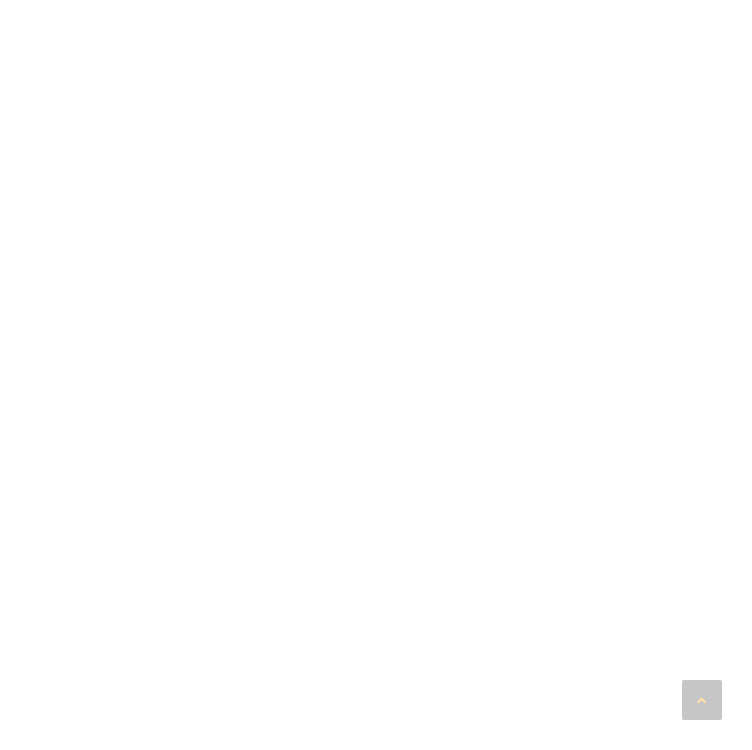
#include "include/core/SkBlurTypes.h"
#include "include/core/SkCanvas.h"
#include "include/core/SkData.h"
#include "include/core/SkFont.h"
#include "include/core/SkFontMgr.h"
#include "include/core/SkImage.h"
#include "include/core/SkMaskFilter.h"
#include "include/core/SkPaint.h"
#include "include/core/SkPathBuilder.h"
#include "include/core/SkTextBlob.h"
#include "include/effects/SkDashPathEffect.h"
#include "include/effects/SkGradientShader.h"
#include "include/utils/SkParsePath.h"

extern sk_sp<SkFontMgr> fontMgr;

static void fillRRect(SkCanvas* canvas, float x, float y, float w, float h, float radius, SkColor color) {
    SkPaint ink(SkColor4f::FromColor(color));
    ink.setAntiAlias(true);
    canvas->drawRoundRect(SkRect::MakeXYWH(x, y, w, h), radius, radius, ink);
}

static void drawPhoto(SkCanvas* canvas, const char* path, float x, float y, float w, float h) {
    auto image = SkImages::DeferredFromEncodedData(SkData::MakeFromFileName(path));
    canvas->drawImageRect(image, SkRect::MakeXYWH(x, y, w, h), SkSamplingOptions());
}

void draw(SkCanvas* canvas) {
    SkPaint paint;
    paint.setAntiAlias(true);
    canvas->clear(0xFFFFFFFF);
    fillRRect(canvas, 682, 680, 40, 40, 2, 0xFFC6C6C6);
    drawPhoto(canvas, "assets/img1.png", 697, 697, 10, 7);
}
